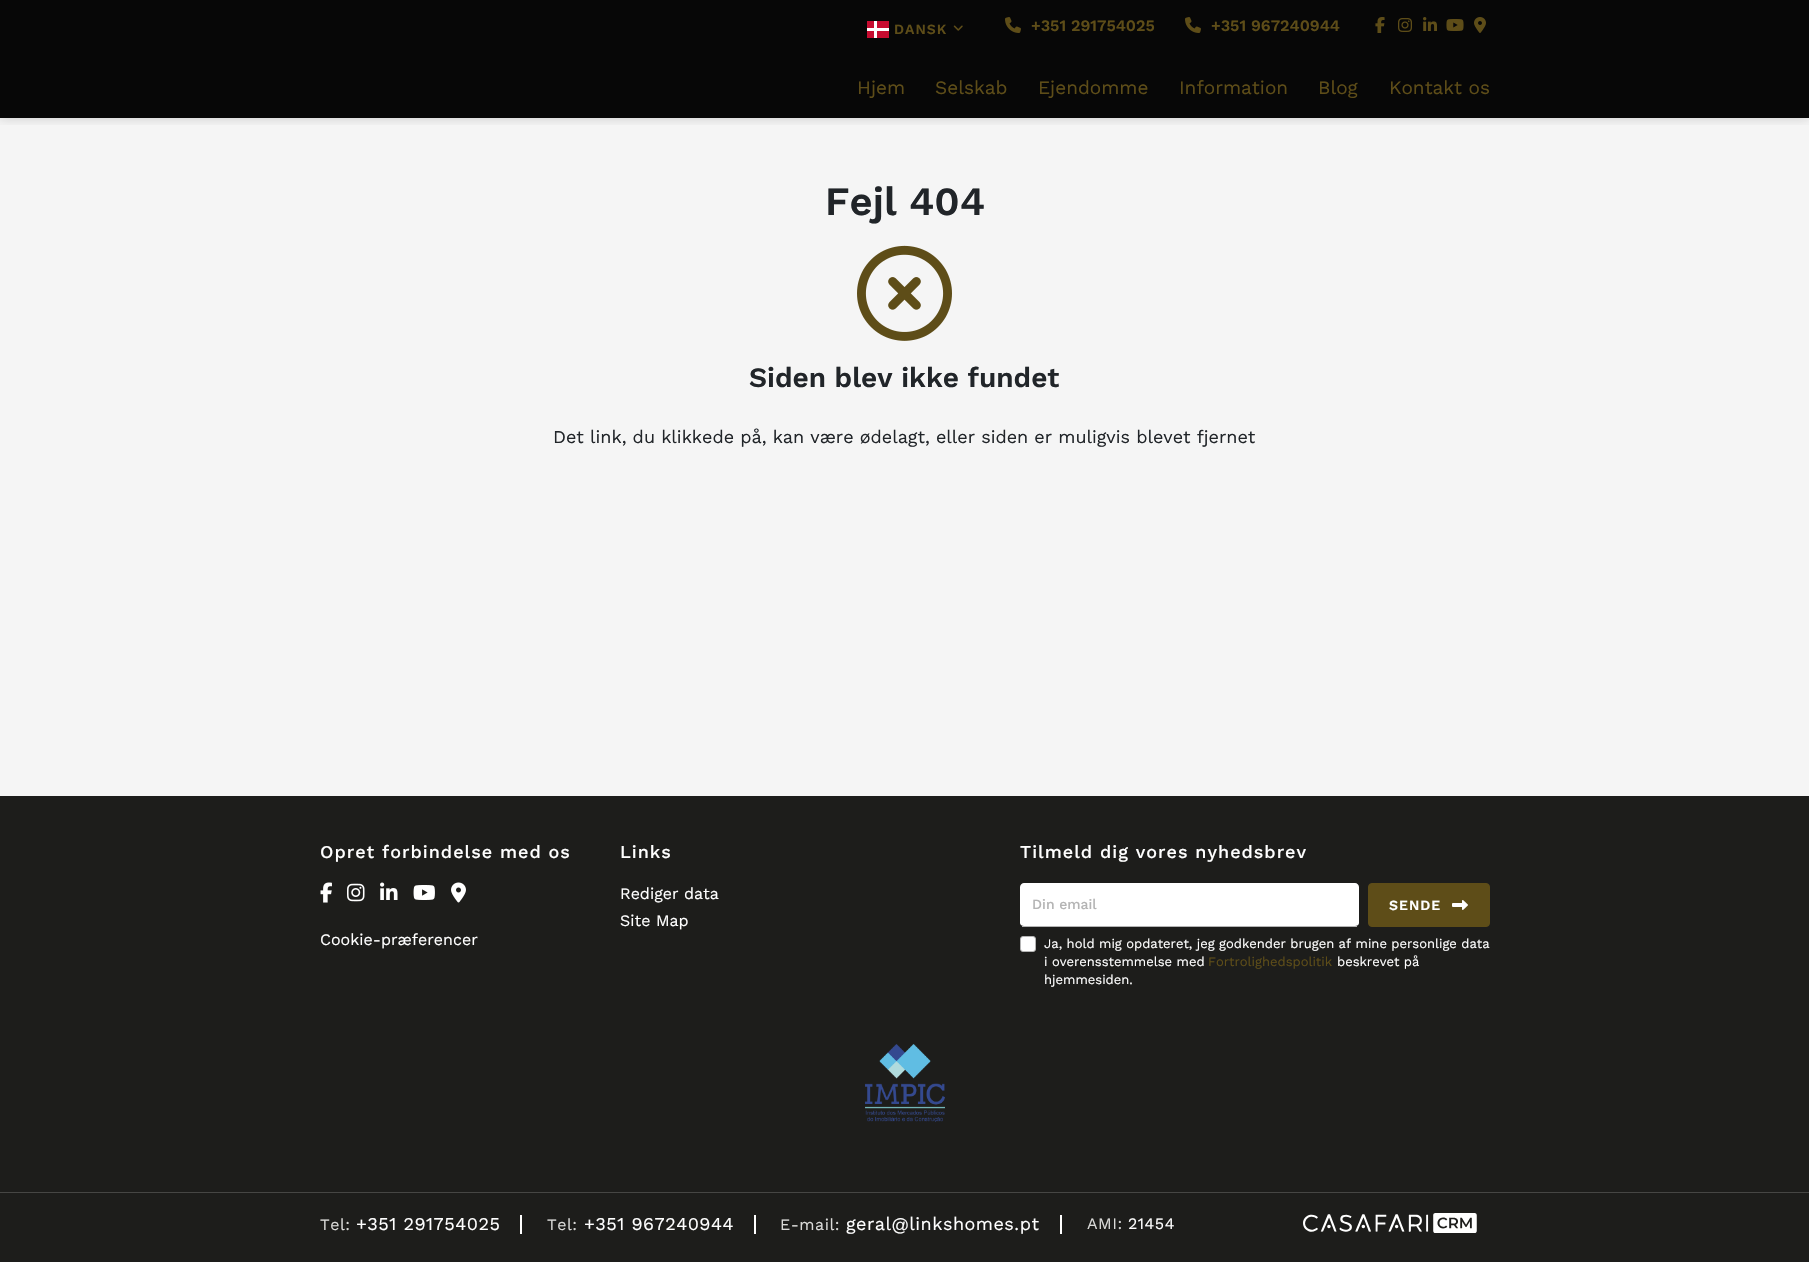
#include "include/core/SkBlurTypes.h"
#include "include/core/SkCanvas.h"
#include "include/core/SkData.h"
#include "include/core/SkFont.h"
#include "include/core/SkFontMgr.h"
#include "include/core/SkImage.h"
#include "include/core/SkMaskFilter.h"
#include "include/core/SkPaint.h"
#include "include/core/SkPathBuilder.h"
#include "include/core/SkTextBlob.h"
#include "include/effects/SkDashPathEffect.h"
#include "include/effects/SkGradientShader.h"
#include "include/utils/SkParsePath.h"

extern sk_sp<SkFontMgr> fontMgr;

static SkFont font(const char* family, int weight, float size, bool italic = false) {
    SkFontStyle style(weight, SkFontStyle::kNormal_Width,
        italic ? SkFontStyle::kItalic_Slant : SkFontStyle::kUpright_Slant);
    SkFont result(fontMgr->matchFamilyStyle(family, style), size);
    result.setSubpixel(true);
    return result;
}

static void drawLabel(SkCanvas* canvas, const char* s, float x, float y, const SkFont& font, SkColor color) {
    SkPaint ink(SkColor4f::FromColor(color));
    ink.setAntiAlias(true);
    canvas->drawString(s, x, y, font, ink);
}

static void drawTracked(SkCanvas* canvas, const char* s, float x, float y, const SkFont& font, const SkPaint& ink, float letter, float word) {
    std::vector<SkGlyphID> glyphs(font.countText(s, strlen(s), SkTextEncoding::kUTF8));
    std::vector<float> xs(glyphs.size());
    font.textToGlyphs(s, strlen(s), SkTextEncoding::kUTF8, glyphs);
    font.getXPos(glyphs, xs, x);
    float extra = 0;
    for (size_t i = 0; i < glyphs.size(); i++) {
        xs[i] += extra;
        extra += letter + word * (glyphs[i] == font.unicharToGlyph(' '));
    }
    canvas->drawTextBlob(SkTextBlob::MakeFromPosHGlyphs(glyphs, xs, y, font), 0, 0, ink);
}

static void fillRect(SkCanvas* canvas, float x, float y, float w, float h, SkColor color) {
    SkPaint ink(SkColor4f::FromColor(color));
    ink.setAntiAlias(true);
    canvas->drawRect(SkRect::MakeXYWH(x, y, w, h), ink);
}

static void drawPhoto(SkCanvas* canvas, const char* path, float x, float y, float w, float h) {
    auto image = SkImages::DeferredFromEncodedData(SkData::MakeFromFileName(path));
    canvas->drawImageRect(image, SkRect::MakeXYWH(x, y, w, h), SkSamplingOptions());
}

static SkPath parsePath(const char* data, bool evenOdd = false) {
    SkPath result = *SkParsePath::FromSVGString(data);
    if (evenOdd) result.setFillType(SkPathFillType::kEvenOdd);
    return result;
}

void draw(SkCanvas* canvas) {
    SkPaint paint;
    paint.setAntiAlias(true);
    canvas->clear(0xFFF5F5F5);
    fillRect(canvas, 0, 0, 1809, 118, 0xFF070707);
    canvas->save();
    canvas->clipRect(SkRect::MakeXYWH(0, 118, 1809, 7));
    paint.setColor(0x42000000);
    paint.setMaskFilter(SkMaskFilter::MakeBlur(kNormal_SkBlurStyle, 6));
    canvas->drawRect(SkRect::MakeXYWH(0, -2, 1809, 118), paint);
    paint.setMaskFilter(nullptr);
    canvas->restore();
    fillRect(canvas, 867, 21, 22, 17, 0xFFC60C30);
    fillRect(canvas, 874, 21, 3, 17, 0xFFFFFFFF);
    fillRect(canvas, 867, 28, 22, 3, 0xFFFFFFFF);
    SkFont font1 = font("Work Sans", 600, 14);
    paint.setColor(0xFF5E4D18);
    drawTracked(canvas, "DANSK", 894, 34, font1, paint, 1, 0);
    drawPhoto(canvas, "assets/img1.png", 953, 25, 10, 6);
    drawPhoto(canvas, "assets/img2.png", 1005, 17, 16, 16);
    SkFont font2 = font("Work Sans", 600, 16);
    drawLabel(canvas, "+351 291754025", 1031, 31, font2, 0xFF5E4D18);
    drawPhoto(canvas, "assets/img2.png", 1185, 17, 16, 16);
    drawLabel(canvas, "+351 967240944", 1211, 31, font2, 0xFF5E4D18);
    drawPhoto(canvas, "assets/img3.png", 1375, 17, 10, 16);
    drawPhoto(canvas, "assets/img4.png", 1398, 18, 14, 14);
    drawPhoto(canvas, "assets/img5.png", 1423, 17, 14, 14);
    drawPhoto(canvas, "assets/img6.png", 1446, 19, 18, 12);
    drawPhoto(canvas, "assets/img7.png", 1474, 17, 12, 16);
    SkFont font3 = font("Work Sans", 400, 19);
    drawLabel(canvas, "Hjem", 857, 94, font3, 0xFF5E4D18);
    drawLabel(canvas, "Selskab", 935, 94, font3, 0xFF5E4D18);
    drawLabel(canvas, "Ejendomme", 1038, 94, font3, 0xFF5E4D18);
    drawLabel(canvas, "Information", 1179, 94, font3, 0xFF5E4D18);
    drawLabel(canvas, "Blog", 1318, 94, font3, 0xFF5E4D18);
    drawLabel(canvas, "Kontakt os", 1389, 94, font3, 0xFF5E4D18);
    SkFont font4 = font("Work Sans", 600, 40);
    drawLabel(canvas, "Fejl 404", 825, 215, font4, 0xFF212529);
    drawPhoto(canvas, "assets/img8.png", 857, 245, 95, 96);
    SkFont font5 = font("Work Sans", 600, 28);
    drawLabel(canvas, "Siden blev ikke fundet", 749, 387, font5, 0xFF212529);
    SkFont font6 = font("Work Sans", 400, 18);
    drawLabel(canvas, "Det link, du klikkede på, kan være ødelagt, eller siden er muligvis blevet fjernet", 553, 443, font6, 0xFF212529);
    fillRect(canvas, 0, 796, 1809, 466, 0xFF1D1D1B);
    SkFont font7 = font("Work Sans", 500, 18);
    paint.setColor(0xFFFFFFFF);
    drawTracked(canvas, "Opret forbindelse med os", 320, 858, font7, paint, 1, 0);
    drawPhoto(canvas, "assets/img9.png", 320, 882, 12, 21);
    drawPhoto(canvas, "assets/img10.png", 347, 883, 18, 19);
    drawPhoto(canvas, "assets/img11.png", 380, 882, 18, 18);
    drawPhoto(canvas, "assets/img12.png", 413, 885, 22, 15);
    drawPhoto(canvas, "assets/img13.png", 451, 882, 15, 21);
    SkFont font8 = font("Work Sans", 400, 16);
    drawLabel(canvas, "Cookie-præferencer", 320, 945, font8, 0xFFFFFFFF);
    drawTracked(canvas, "Links", 620, 858, font7, paint, 1, 0);
    drawLabel(canvas, "Rediger data", 620, 899, font8, 0xFFFFFFFF);
    drawLabel(canvas, "Site Map", 620, 926, font8, 0xFFFFFFFF);
    drawTracked(canvas, "Tilmeld dig vores nyhedsbrev", 1020, 858, font7, paint, 1, 0);
    canvas->drawPath(parsePath("M1024 883H1355C1357 883 1359 885 1359 887V923C1359 925 1357 926 1355 926H1024C1022 926 1020 925 1020 923V887C1020 885 1022 883 1024 883Z"), paint);
    fillRect(canvas, 1022, 926, 335, 1, 0xFFB4B4B4);
    SkFont font9 = font("Work Sans", 500, 14);
    drawLabel(canvas, "Din email", 1032, 909, font9, 0xFFB4B4B4);
    paint.setColor(0xFF5E4D18);
    canvas->drawRoundRect(SkRect::MakeXYWH(1368.5f, 883.5f, 121, 43), 3.5f, 3.5f, paint);
    paint.setStroke(true);
    paint.setStrokeWidth(1);
    canvas->drawRoundRect(SkRect::MakeXYWH(1368.5f, 883.5f, 121, 43), 3.5f, 3.5f, paint);
    paint.setStroke(false);
    paint.setColor(0xFFFFFFFF);
    drawTracked(canvas, "SENDE", 1389, 910, font1, paint, 1, 0);
    drawPhoto(canvas, "assets/img14.png", 1452, 900, 16, 10);
    canvas->drawRoundRect(SkRect::MakeXYWH(1020.5f, 936.5f, 15, 15), 2.5f, 2.5f, paint);
    paint.setStroke(true);
    paint.setColor(0xFFB4B4B4);
    canvas->drawRoundRect(SkRect::MakeXYWH(1020.5f, 936.5f, 15, 15), 2.5f, 2.5f, paint);
    SkFont font10 = font("Work Sans", 400, 13);
    drawLabel(canvas, "Ja, hold mig opdateret, jeg godkender brugen af mine personlige data", 1044, 948, font10, 0xFFFFFFFF);
    drawLabel(canvas, "i overensstemmelse med", 1044, 966, font10, 0xFFFFFFFF);
    drawLabel(canvas, "Fortrolighedspolitik", 1208, 966, font10, 0xFF5E4D18);
    drawLabel(canvas, "beskrevet på", 1337, 966, font10, 0xFFFFFFFF);
    drawLabel(canvas, "hjemmesiden.", 1044, 984, font10, 0xFFFFFFFF);
    drawPhoto(canvas, "assets/img15.png", 865, 1044, 80, 78);
    fillRect(canvas, 0, 1192, 1809, 1, 0xFF464644);
    paint.setStroke(false);
    paint.setColor(0xFFDADAD8);
    drawTracked(canvas, "Tel:", 320, 1230, font8, paint, 0.5f, 0);
    paint.setColor(0xFFFFFFFF);
    drawTracked(canvas, "+351 291754025", 356, 1230, font6, paint, 0.5f, 0);
    fillRect(canvas, 520, 1215, 2, 19, 0xFFFFFFFF);
    paint.setColor(0xFFDADAD8);
    drawTracked(canvas, "Tel:", 547, 1230, font8, paint, 0.5f, 0);
    paint.setColor(0xFFFFFFFF);
    drawTracked(canvas, "+351 967240944", 584, 1230, font6, paint, 0.5f, 0);
    fillRect(canvas, 754, 1215, 2, 19, 0xFFFFFFFF);
    paint.setColor(0xFFDADAD8);
    drawTracked(canvas, "E-mail:", 780, 1230, font8, paint, 0.5f, 0);
    paint.setColor(0xFFFFFFFF);
    drawTracked(canvas, "geral@linkshomes.pt", 846, 1230, font6, paint, 0.5f, 0);
    fillRect(canvas, 1060, 1215, 2, 19, 0xFFFFFFFF);
    paint.setColor(0xFFDADAD8);
    drawTracked(canvas, "AMI:", 1087, 1229, font8, paint, 0.5f, 0);
    paint.setColor(0xFFFFFFFF);
    drawTracked(canvas, "21454", 1128, 1229, font8, paint, 0.5f, 0);
    drawPhoto(canvas, "assets/img16.png", 1303, 1213, 174, 20);
}
